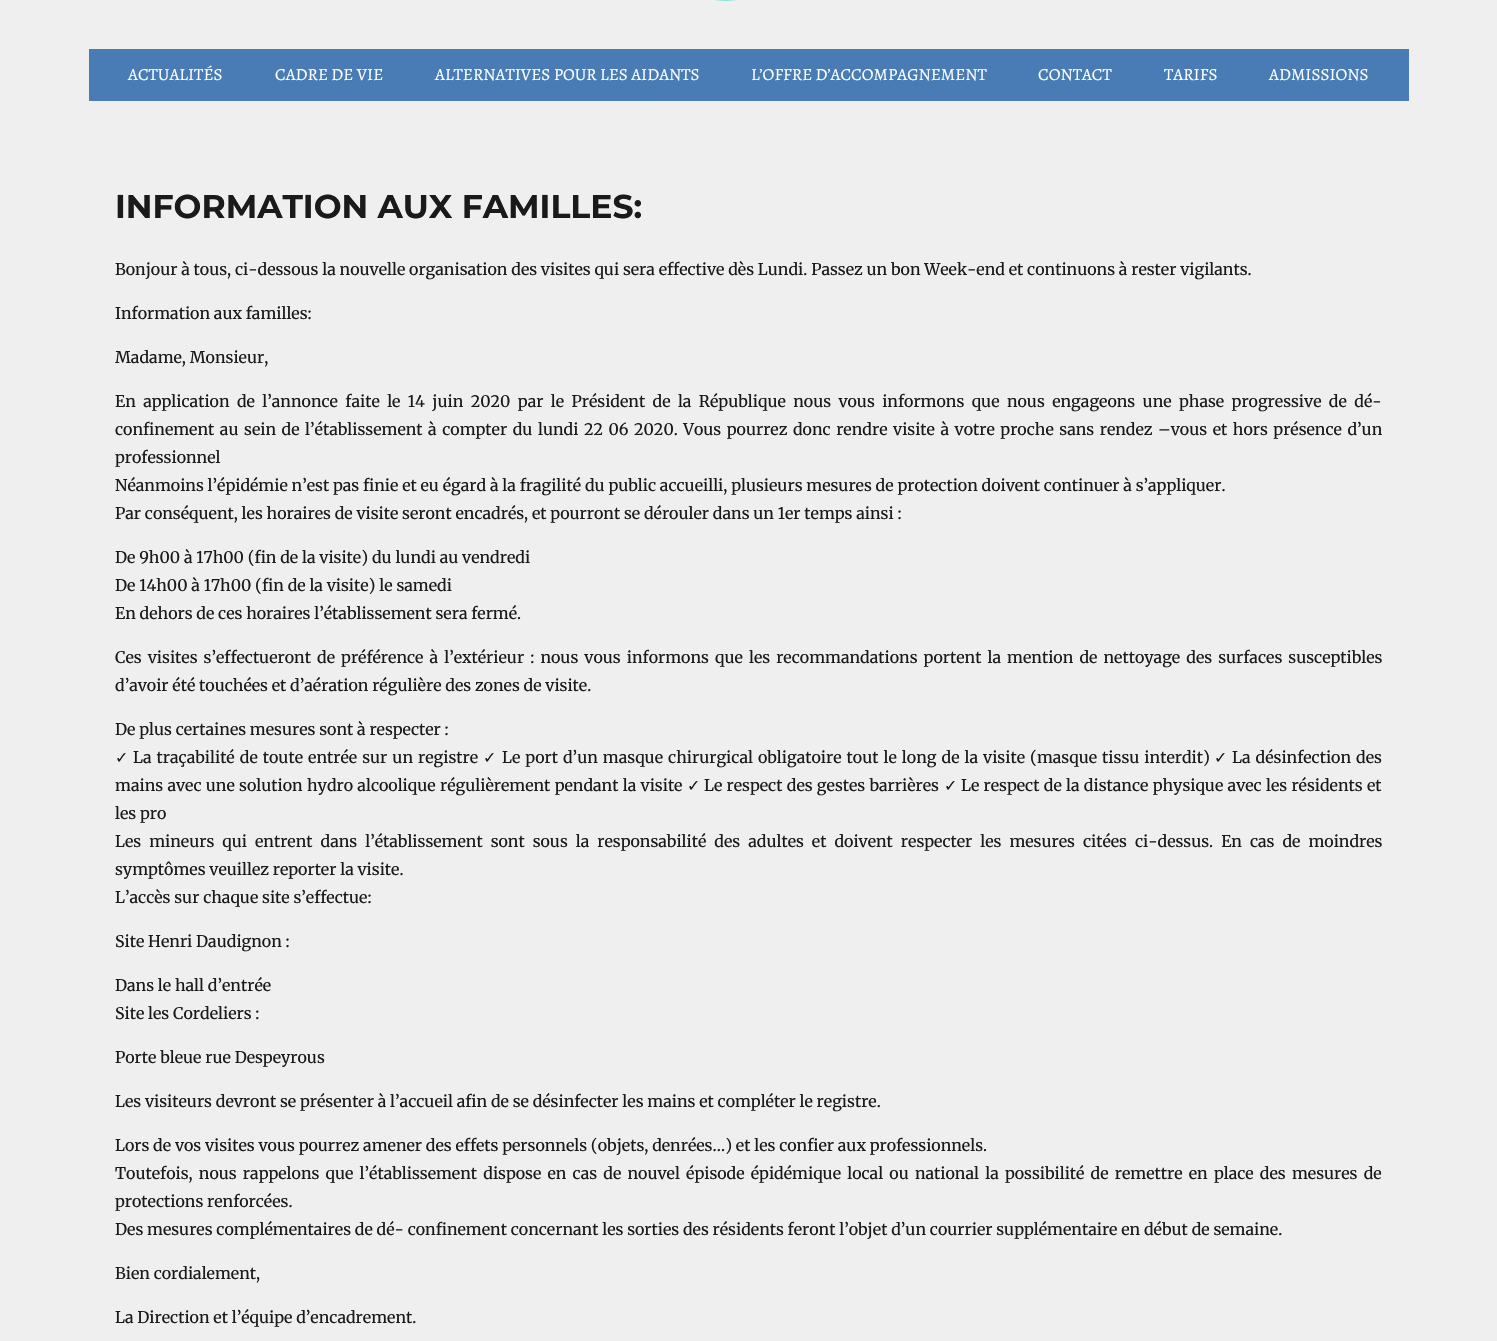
#include "include/core/SkBlurTypes.h"
#include "include/core/SkCanvas.h"
#include "include/core/SkData.h"
#include "include/core/SkFont.h"
#include "include/core/SkFontMgr.h"
#include "include/core/SkImage.h"
#include "include/core/SkMaskFilter.h"
#include "include/core/SkPaint.h"
#include "include/core/SkPathBuilder.h"
#include "include/core/SkTextBlob.h"
#include "include/effects/SkDashPathEffect.h"
#include "include/effects/SkGradientShader.h"
#include "include/utils/SkParsePath.h"

extern sk_sp<SkFontMgr> fontMgr;

static SkFont font(const char* family, int weight, float size, bool italic = false) {
    SkFontStyle style(weight, SkFontStyle::kNormal_Width,
        italic ? SkFontStyle::kItalic_Slant : SkFontStyle::kUpright_Slant);
    SkFont result(fontMgr->matchFamilyStyle(family, style), size);
    result.setSubpixel(true);
    return result;
}

static void drawLabel(SkCanvas* canvas, const char* s, float x, float y, const SkFont& font, SkColor color) {
    SkPaint ink(SkColor4f::FromColor(color));
    ink.setAntiAlias(true);
    canvas->drawString(s, x, y, font, ink);
}

static void drawTracked(SkCanvas* canvas, const char* s, float x, float y, const SkFont& font, const SkPaint& ink, float letter, float word) {
    std::vector<SkGlyphID> glyphs(font.countText(s, strlen(s), SkTextEncoding::kUTF8));
    std::vector<float> xs(glyphs.size());
    font.textToGlyphs(s, strlen(s), SkTextEncoding::kUTF8, glyphs);
    font.getXPos(glyphs, xs, x);
    float extra = 0;
    for (size_t i = 0; i < glyphs.size(); i++) {
        xs[i] += extra;
        extra += letter + word * (glyphs[i] == font.unicharToGlyph(' '));
    }
    canvas->drawTextBlob(SkTextBlob::MakeFromPosHGlyphs(glyphs, xs, y, font), 0, 0, ink);
}

static void fillRect(SkCanvas* canvas, float x, float y, float w, float h, SkColor color) {
    SkPaint ink(SkColor4f::FromColor(color));
    ink.setAntiAlias(true);
    canvas->drawRect(SkRect::MakeXYWH(x, y, w, h), ink);
}

static void drawPhoto(SkCanvas* canvas, const char* path, float x, float y, float w, float h) {
    auto image = SkImages::DeferredFromEncodedData(SkData::MakeFromFileName(path));
    canvas->drawImageRect(image, SkRect::MakeXYWH(x, y, w, h), SkSamplingOptions());
}

void draw(SkCanvas* canvas) {
    SkPaint paint;
    paint.setAntiAlias(true);
    canvas->clear(0xFFEFEFEF);
    drawPhoto(canvas, "assets/img1.png", 715, 0, 22, 1);
    fillRect(canvas, 89, 49, 1320, 52, 0xFF497CB5);
    SkFont font1 = font("Alegreya", 400, 17);
    drawLabel(canvas, "ACTUALITÉS", 128, 80, font1, 0xFFFFFFFF);
    drawLabel(canvas, "CADRE DE VIE", 275, 80, font1, 0xFFFFFFFF);
    drawLabel(canvas, "ALTERNATIVES POUR LES AIDANTS", 435, 80, font1, 0xFFFFFFFF);
    drawLabel(canvas, "L’OFFRE D’ACCOMPAGNEMENT", 751, 80, font1, 0xFFFFFFFF);
    drawLabel(canvas, "CONTACT", 1038, 80, font1, 0xFFFFFFFF);
    drawLabel(canvas, "TARIFS", 1164, 80, font1, 0xFFFFFFFF);
    drawLabel(canvas, "ADMISSIONS", 1269, 80, font1, 0xFFFFFFFF);
    SkFont font2 = font("Montserrat", 700, 33);
    drawLabel(canvas, "INFORMATION AUX FAMILLES:", 115, 218, font2, 0xFF1A1A1A);
    SkFont font3 = font("Merriweather", 400, 16);
    drawLabel(canvas, "Bonjour à tous, ci-dessous la nouvelle organisation des visites qui sera effective dès Lundi. Passez un bon Week-end et continuons à rester vigilants.", 115, 275, font3, 0xFF1A1A1A);
    drawLabel(canvas, "Information aux familles:", 115, 319, font3, 0xFF1A1A1A);
    drawLabel(canvas, "Madame, Monsieur,", 115, 363, font3, 0xFF1A1A1A);
    paint.setColor(0xFF1A1A1A);
    drawTracked(canvas, "En application de l’annonce faite le 14 juin 2020 par le Président de la République nous vous informons que nous engageons une phase progressive de dé-", 115, 407, font3, paint, 0, 3.6f);
    drawTracked(canvas, "confinement au sein de l’établissement à compter du lundi 22 06 2020. Vous pourrez donc rendre visite à votre proche sans rendez –vous et hors présence d’un", 115, 435, font3, paint, 0, 1.75f);
    drawLabel(canvas, "professionnel", 115, 463, font3, 0xFF1A1A1A);
    drawLabel(canvas, "Néanmoins l’épidémie n’est pas finie et eu égard à la fragilité du public accueilli, plusieurs mesures de protection doivent continuer à s’appliquer.", 115, 491, font3, 0xFF1A1A1A);
    drawLabel(canvas, "Par conséquent, les horaires de visite seront encadrés, et pourront se dérouler dans un 1er temps ainsi :", 115, 519, font3, 0xFF1A1A1A);
    drawLabel(canvas, "De 9h00 à 17h00 (fin de la visite) du lundi au vendredi", 115, 563, font3, 0xFF1A1A1A);
    drawLabel(canvas, "De 14h00 à 17h00 (fin de la visite) le samedi", 115, 591, font3, 0xFF1A1A1A);
    drawLabel(canvas, "En dehors de ces horaires l’établissement sera fermé.", 115, 619, font3, 0xFF1A1A1A);
    drawTracked(canvas, "Ces visites s’effectueront de préférence à l’extérieur : nous vous informons que les recommandations portent la mention de nettoyage des surfaces susceptibles", 115, 663, font3, paint, 0, 2.3f);
    drawLabel(canvas, "d’avoir été touchées et d’aération régulière des zones de visite.", 115, 691, font3, 0xFF1A1A1A);
    drawLabel(canvas, "De plus certaines mesures sont à respecter :", 115, 735, font3, 0xFF1A1A1A);
    SkFont font4 = font("DejaVu Sans", 400, 16);
    drawLabel(canvas, "✓", 115, 763, font4, 0xFF1A1A1A);
    drawTracked(canvas, "La traçabilité de toute entrée sur un registre", 133, 763, font3, paint, 0, 1.25f);
    drawLabel(canvas, "✓", 483, 763, font4, 0xFF1A1A1A);
    drawTracked(canvas, "Le port d’un masque chirurgical obligatoire tout le long de la visite (masque tissu interdit)", 502, 763, font3, paint, 0, 1.25f);
    drawLabel(canvas, "✓", 1214, 763, font4, 0xFF1A1A1A);
    drawTracked(canvas, "La désinfection des", 1232, 763, font3, paint, 0, 1.25f);
    drawTracked(canvas, "mains avec une solution hydro alcoolique régulièrement pendant la visite", 115, 791, font3, paint, 0, 0.5f);
    drawLabel(canvas, "✓", 687, 791, font4, 0xFF1A1A1A);
    drawTracked(canvas, "Le respect des gestes barrières", 704, 791, font3, paint, 0, 0.5f);
    drawLabel(canvas, "✓", 944, 791, font4, 0xFF1A1A1A);
    drawTracked(canvas, "Le respect de la distance physique avec les résidents et", 961, 791, font3, paint, 0, 0.5f);
    drawLabel(canvas, "les pro", 115, 819, font3, 0xFF1A1A1A);
    drawTracked(canvas, "Les mineurs qui entrent dans l’établissement sont sous la responsabilité des adultes et doivent respecter les mesures citées ci-dessus. En cas de moindres", 115, 847, font3, paint, 0, 4.2f);
    drawLabel(canvas, "symptômes veuillez reporter la visite.", 115, 875, font3, 0xFF1A1A1A);
    drawLabel(canvas, "L’accès sur chaque site s’effectue:", 115, 903, font3, 0xFF1A1A1A);
    drawLabel(canvas, "Site Henri Daudignon :", 115, 947, font3, 0xFF1A1A1A);
    drawLabel(canvas, "Dans le hall d’entrée", 115, 991, font3, 0xFF1A1A1A);
    drawLabel(canvas, "Site les Cordeliers :", 115, 1019, font3, 0xFF1A1A1A);
    drawLabel(canvas, "Porte bleue rue Despeyrous", 115, 1063, font3, 0xFF1A1A1A);
    drawLabel(canvas, "Les visiteurs devront se présenter à l’accueil afin de se désinfecter les mains et compléter le registre.", 115, 1107, font3, 0xFF1A1A1A);
    drawLabel(canvas, "Lors de vos visites vous pourrez amener des effets personnels (objets, denrées…) et les confier aux professionnels.", 115, 1151, font3, 0xFF1A1A1A);
    drawTracked(canvas, "Toutefois, nous rappelons que l’établissement dispose en cas de nouvel épisode épidémique local ou national la possibilité de remettre en place des mesures de", 115, 1179, font3, paint, 0, 2.4f);
    drawLabel(canvas, "protections renforcées.", 115, 1207, font3, 0xFF1A1A1A);
    drawLabel(canvas, "Des mesures complémentaires de dé- confinement concernant les sorties des résidents feront l’objet d’un courrier supplémentaire en début de semaine.", 115, 1235, font3, 0xFF1A1A1A);
    drawLabel(canvas, "Bien cordialement,", 115, 1279, font3, 0xFF1A1A1A);
    drawLabel(canvas, "La Direction et l’équipe d’encadrement.", 115, 1323, font3, 0xFF1A1A1A);
}
